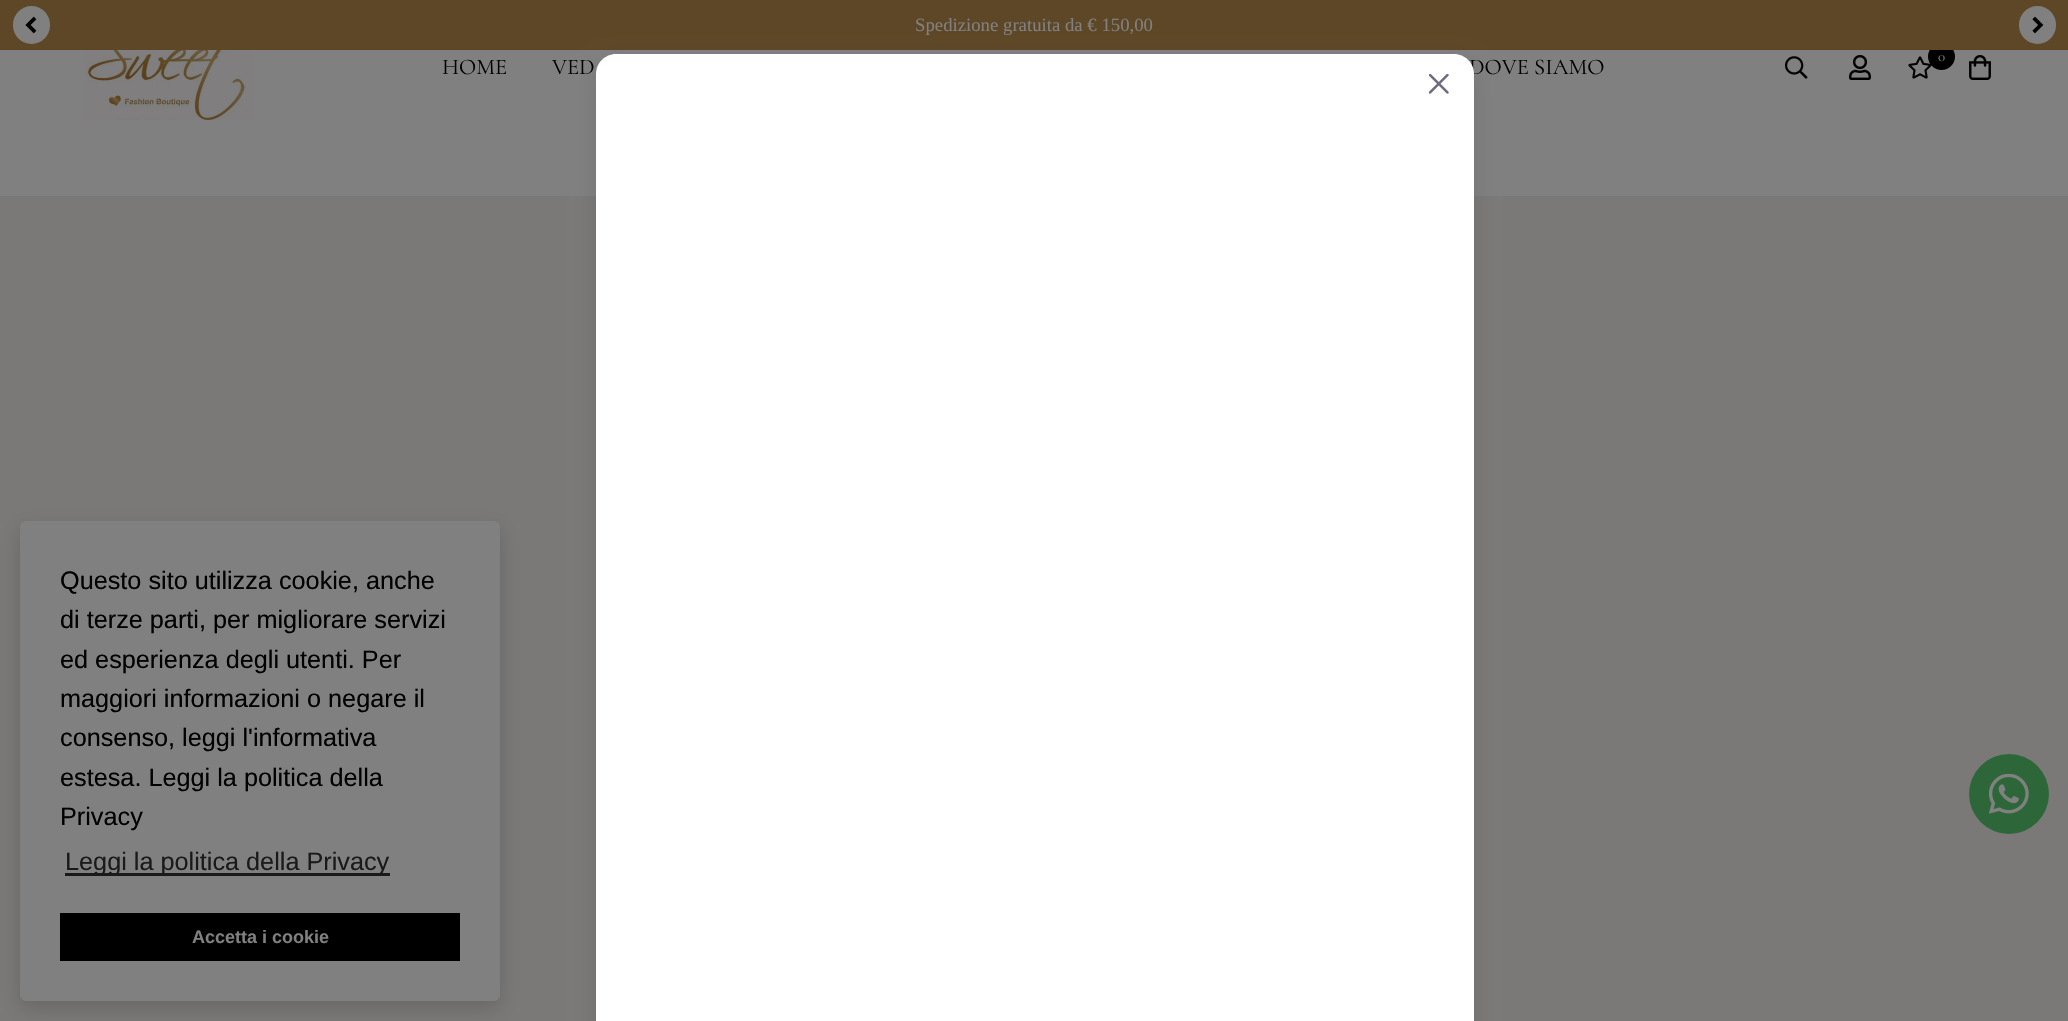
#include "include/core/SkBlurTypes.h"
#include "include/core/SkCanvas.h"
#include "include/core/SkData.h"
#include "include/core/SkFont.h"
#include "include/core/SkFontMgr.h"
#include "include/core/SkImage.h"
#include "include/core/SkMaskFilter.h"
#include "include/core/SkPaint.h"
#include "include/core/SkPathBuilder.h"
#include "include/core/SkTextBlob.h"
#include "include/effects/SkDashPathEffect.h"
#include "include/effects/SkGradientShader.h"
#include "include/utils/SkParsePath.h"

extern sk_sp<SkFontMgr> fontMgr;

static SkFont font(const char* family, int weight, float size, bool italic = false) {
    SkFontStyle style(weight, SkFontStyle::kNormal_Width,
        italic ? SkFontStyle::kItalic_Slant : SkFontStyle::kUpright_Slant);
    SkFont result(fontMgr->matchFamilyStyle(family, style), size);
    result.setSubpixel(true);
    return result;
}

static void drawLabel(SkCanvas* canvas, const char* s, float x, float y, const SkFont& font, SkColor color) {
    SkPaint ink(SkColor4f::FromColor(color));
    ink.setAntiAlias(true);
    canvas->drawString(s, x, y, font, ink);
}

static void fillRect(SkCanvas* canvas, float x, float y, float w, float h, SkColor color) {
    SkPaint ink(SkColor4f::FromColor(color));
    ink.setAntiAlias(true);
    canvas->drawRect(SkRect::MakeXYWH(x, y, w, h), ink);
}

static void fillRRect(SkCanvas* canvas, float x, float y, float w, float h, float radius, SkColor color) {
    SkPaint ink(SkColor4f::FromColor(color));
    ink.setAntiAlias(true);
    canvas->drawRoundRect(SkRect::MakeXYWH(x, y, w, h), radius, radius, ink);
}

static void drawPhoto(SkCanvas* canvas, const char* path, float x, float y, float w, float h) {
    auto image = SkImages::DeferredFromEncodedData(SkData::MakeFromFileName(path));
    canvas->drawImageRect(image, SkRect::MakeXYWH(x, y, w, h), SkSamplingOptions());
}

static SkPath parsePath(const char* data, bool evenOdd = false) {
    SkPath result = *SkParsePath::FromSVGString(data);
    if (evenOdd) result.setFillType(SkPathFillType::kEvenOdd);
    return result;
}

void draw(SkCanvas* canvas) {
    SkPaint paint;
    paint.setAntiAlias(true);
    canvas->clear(0xFF808080);
    drawPhoto(canvas, "assets/img7.png", 1908, 56, 24, 23);
    paint.setColor(0xFF000000);
    canvas->drawCircle(1941.5f, 56.5f, 13.5f, paint);
    fillRect(canvas, 0, 0, 2068, 50, 0xFF5E4727);
    fillRRect(canvas, 13, 6, 37, 38, 18.5f, 0xFF808080);
    drawPhoto(canvas, "assets/img1.png", 25, 16, 12, 18);
    SkFont font1 = font("Liberation Serif", 400, 18.75f);
    drawLabel(canvas, "Spedizione gratuita da € 150,00", 915, 31, font1, 0xFF808080);
    fillRRect(canvas, 2019, 6, 37, 38, 18.5f, 0xFF808080);
    drawPhoto(canvas, "assets/img2.png", 2032, 16, 12, 18);
    fillRect(canvas, 0, 196, 2068, 825, 0xFF7B7977);
    paint.setColor(0x1A121127);
    paint.setMaskFilter(SkMaskFilter::MakeBlur(kNormal_SkBlurStyle, 12.5f));
    canvas->drawRoundRect(SkRect::MakeXYWH(596, 64, 878, 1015), 20, 20, paint);
    paint.setMaskFilter(nullptr);
    SkFont font2 = font("Cormorant", 400, 22.5f);
    drawLabel(canvas, "DOVE SIAMO", 1469, 74, font2, 0xFF000000);
    paint.setColor(0xFFFFFFFF);
    canvas->drawPath(parsePath("M616 54H1454C1465 54 1474 63 1474 74V1021H596V74C596 63 605 54 616 54Z"), paint);
    drawPhoto(canvas, "assets/img3.png", 1429, 74, 20, 20);
    drawPhoto(canvas, "assets/img4.png", 85, 50, 169, 70);
    drawLabel(canvas, "HOME", 442, 74, font2, 0xFF000000);
    drawLabel(canvas, "VED", 552, 74, font2, 0xFF000000);
    drawPhoto(canvas, "assets/img5.png", 1785, 56, 23, 23);
    drawPhoto(canvas, "assets/img6.png", 1849, 55, 22, 25);
    SkFont font3 = font("Cormorant", 400, 15);
    drawLabel(canvas, "0", 1938, 61, font3, 0xFF808080);
    drawPhoto(canvas, "assets/img8.png", 1969, 55, 22, 25);
    paint.setColor(0x26000000);
    paint.setMaskFilter(SkMaskFilter::MakeBlur(kNormal_SkBlurStyle, 9.5f));
    canvas->drawRoundRect(SkRect::MakeXYWH(20, 528, 480, 480), 6, 6, paint);
    paint.setMaskFilter(nullptr);
    fillRRect(canvas, 20, 521, 480, 480, 6, 0xFF808080);
    SkFont font4 = font("Liberation Sans", 400, 25.25f);
    drawLabel(canvas, "Questo sito utilizza cookie, anche", 60, 589, font4, 0xFF000000);
    drawLabel(canvas, "di terze parti, per migliorare servizi", 60, 628, font4, 0xFF000000);
    drawLabel(canvas, "ed esperienza degli utenti. Per", 60, 668, font4, 0xFF000000);
    drawLabel(canvas, "maggiori informazioni o negare il", 60, 707, font4, 0xFF000000);
    drawLabel(canvas, "consenso, leggi l'informativa", 60, 746, font4, 0xFF000000);
    drawLabel(canvas, "estesa. Leggi la politica della", 60, 786, font4, 0xFF000000);
    drawLabel(canvas, "Privacy", 60, 825, font4, 0xFF000000);
    fillRect(canvas, 65, 873, 325, 3, 0xFF1A1A1A);
    drawLabel(canvas, "Leggi la politica della Privacy", 65, 870, font4, 0xFF1A1A1A);
    fillRect(canvas, 60, 913, 400, 48, 0xFF000000);
    SkFont font5 = font("Liberation Sans", 700, 18);
    drawLabel(canvas, "Accetta i cookie", 192, 943, font5, 0xFF808080);
    paint.setColor(0xFF2D6739);
    canvas->drawCircle(2009, 794, 40, paint);
    drawPhoto(canvas, "assets/img9.png", 1989, 774, 40, 40);
}
